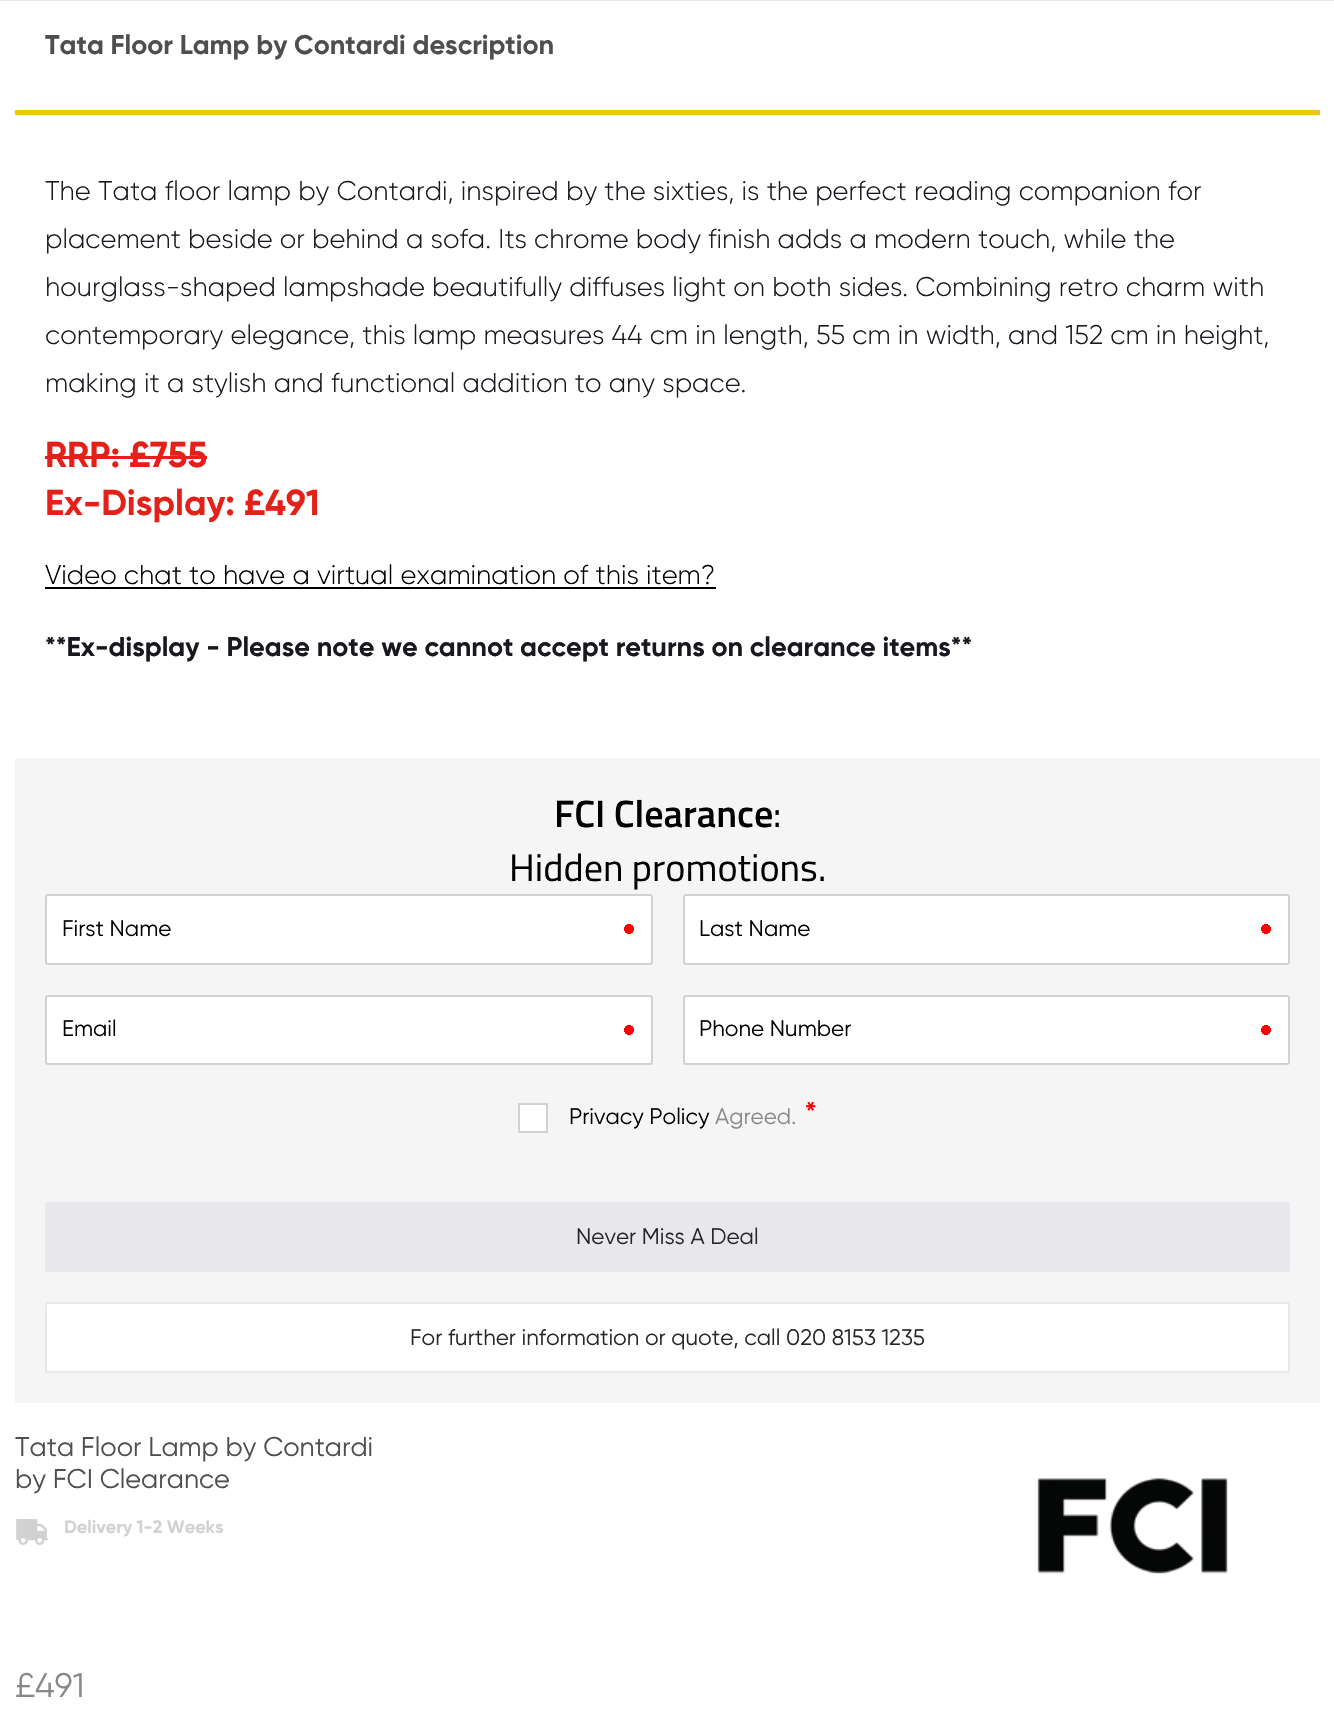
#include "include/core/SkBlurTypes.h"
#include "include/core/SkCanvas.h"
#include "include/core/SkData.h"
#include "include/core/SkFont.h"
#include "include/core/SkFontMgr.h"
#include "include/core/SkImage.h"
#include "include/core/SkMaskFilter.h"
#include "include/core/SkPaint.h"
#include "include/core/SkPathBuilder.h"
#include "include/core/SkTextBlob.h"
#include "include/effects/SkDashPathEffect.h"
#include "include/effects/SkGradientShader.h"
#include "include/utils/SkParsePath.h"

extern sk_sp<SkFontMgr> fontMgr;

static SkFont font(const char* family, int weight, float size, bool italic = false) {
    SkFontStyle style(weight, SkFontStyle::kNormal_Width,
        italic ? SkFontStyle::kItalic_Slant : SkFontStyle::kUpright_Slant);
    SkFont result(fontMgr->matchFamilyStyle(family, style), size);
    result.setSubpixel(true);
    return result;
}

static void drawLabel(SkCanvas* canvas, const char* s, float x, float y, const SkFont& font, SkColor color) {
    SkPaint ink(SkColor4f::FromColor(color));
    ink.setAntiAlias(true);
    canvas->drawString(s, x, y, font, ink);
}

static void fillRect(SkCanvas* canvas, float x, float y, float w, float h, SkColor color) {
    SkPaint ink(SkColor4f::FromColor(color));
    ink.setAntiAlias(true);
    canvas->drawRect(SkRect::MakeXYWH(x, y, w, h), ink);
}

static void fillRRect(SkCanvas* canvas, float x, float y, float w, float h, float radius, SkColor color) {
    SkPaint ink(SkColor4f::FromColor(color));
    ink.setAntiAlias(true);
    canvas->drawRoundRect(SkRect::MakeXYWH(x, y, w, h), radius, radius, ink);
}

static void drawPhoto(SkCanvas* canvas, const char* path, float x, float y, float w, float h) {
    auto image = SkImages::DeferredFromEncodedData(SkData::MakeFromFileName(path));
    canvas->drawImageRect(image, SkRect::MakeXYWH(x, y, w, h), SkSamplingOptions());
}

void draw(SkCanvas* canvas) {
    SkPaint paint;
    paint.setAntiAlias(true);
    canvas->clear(0xFFFFFFFF);
    fillRect(canvas, 0, 0, 1334, 1, 0xFFE8E7EC);
    fillRect(canvas, 15, 110, 1305, 5, 0xFFEBCA0D);
    SkFont font1 = font("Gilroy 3", 400, 27);
    drawLabel(canvas, "Tata Floor Lamp by Contardi description", 45, 54, font1, 0xFF4E4E4E);
    SkFont font2 = font("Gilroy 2", 400, 27);
    drawLabel(canvas, "The Tata floor lamp by Contardi, inspired by the sixties, is the perfect reading companion for", 45, 200, font2, 0xFF18191F);
    drawLabel(canvas, "placement beside or behind a sofa. Its chrome body finish adds a modern touch, while the", 45, 248, font2, 0xFF18191F);
    drawLabel(canvas, "hourglass-shaped lampshade beautifully diffuses light on both sides. Combining retro charm with", 45, 296, font2, 0xFF18191F);
    drawLabel(canvas, "contemporary elegance, this lamp measures 44 cm in length, 55 cm in width, and 152 cm in height,", 45, 344, font2, 0xFF18191F);
    drawLabel(canvas, "making it a stylish and functional addition to any space.", 45, 392, font2, 0xFF18191F);
    SkFont font3 = font("Gilroy 3", 400, 36);
    drawLabel(canvas, "RRP: £755", 45, 467, font3, 0xFFE42118);
    fillRect(canvas, 45, 456, 162, 3, 0xFFE42118);
    drawLabel(canvas, "Ex-Display: £491", 45, 515, font3, 0xFFE42118);
    drawLabel(canvas, "Video chat to have a virtual examination of this item?", 45, 584, font2, 0xFF000000);
    fillRect(canvas, 45, 587, 671, 2, 0xFF000000);
    drawLabel(canvas, "**Ex-display - Please note we cannot accept returns on clearance items**", 45, 656, font1, 0xFF18191F);
    fillRect(canvas, 15, 758, 1305, 645, 0xFFF5F5F5);
    SkFont font4 = font("Titillium Web", 600, 38.25f);
    drawLabel(canvas, "FCI Clearance", 554, 827, font4, 0xFF000000);
    SkFont font5 = font("Titillium Web", 400, 38.25f);
    drawLabel(canvas, ":", 773, 827, font5, 0xFF000000);
    drawLabel(canvas, "Hidden promotions.", 509, 881, font5, 0xFF000000);
    fillRRect(canvas, 45, 894, 608, 71, 3, 0xFFFFFFFF);
    {
        const SkColor colors[] = {0xFFFF0000, 0xFFFFFFFF};
        const float stops[] = {0.15f, 0.16f};
        paint.setShader(SkGradientShader::MakeRadial({629, 929}, 32, colors, stops, 2, SkTileMode::kClamp));
        paint.setAlpha(255);
    }
    canvas->drawRect(SkRect::MakeXYWH(624, 924, 10, 10), paint);
    {
        const SkColor colors[] = {0xFFFF0000, 0x00FF0000};
        const float stops[] = {0.15f, 0.16f};
        paint.setShader(SkGradientShader::MakeRadial({629, 929}, 32, colors, stops, 2, SkTileMode::kClamp));
        paint.setAlpha(255);
    }
    canvas->drawRect(SkRect::MakeXYWH(625, 925, 8, 8), paint);
    paint.setStroke(true);
    paint.setStrokeWidth(2);
    paint.setShader(nullptr);
    paint.setColor(0xFFD1D1D1);
    canvas->drawRoundRect(SkRect::MakeXYWH(46, 895, 606, 69), 2, 2, paint);
    SkFont font6 = font("Gilroy", 400, 22.5f);
    drawLabel(canvas, "First Name", 62, 936, font6, 0xFF000000);
    fillRRect(canvas, 683, 894, 607, 71, 3, 0xFFFFFFFF);
    paint.setStroke(false);
    {
        const SkColor colors[] = {0xFFFF0000, 0xFFFFFFFF};
        const float stops[] = {0.15f, 0.16f};
        paint.setShader(SkGradientShader::MakeRadial({1266, 929}, 32, colors, stops, 2, SkTileMode::kClamp));
        paint.setAlpha(255);
    }
    canvas->drawRect(SkRect::MakeXYWH(1261, 924, 10, 10), paint);
    {
        const SkColor colors[] = {0xFFFF0000, 0x00FF0000};
        const float stops[] = {0.15f, 0.16f};
        paint.setShader(SkGradientShader::MakeRadial({1266, 929}, 32, colors, stops, 2, SkTileMode::kClamp));
        paint.setAlpha(255);
    }
    canvas->drawRect(SkRect::MakeXYWH(1262, 925, 8, 8), paint);
    paint.setStroke(true);
    paint.setShader(nullptr);
    paint.setColor(0xFFD1D1D1);
    canvas->drawRoundRect(SkRect::MakeXYWH(684, 895, 605, 69), 2, 2, paint);
    drawLabel(canvas, "Last Name", 699, 936, font6, 0xFF000000);
    fillRRect(canvas, 45, 995, 608, 70, 3, 0xFFFFFFFF);
    paint.setStroke(false);
    {
        const SkColor colors[] = {0xFFFF0000, 0xFFFFFFFF};
        const float stops[] = {0.15f, 0.16f};
        paint.setShader(SkGradientShader::MakeRadial({629, 1030}, 32, colors, stops, 2, SkTileMode::kClamp));
        paint.setAlpha(255);
    }
    canvas->drawRect(SkRect::MakeXYWH(624, 1025, 10, 10), paint);
    {
        const SkColor colors[] = {0xFFFF0000, 0x00FF0000};
        const float stops[] = {0.15f, 0.16f};
        paint.setShader(SkGradientShader::MakeRadial({629, 1030}, 32, colors, stops, 2, SkTileMode::kClamp));
        paint.setAlpha(255);
    }
    canvas->drawRect(SkRect::MakeXYWH(625, 1026, 8, 8), paint);
    paint.setStroke(true);
    paint.setShader(nullptr);
    paint.setColor(0xFFD1D1D1);
    canvas->drawRoundRect(SkRect::MakeXYWH(46, 996, 606, 68), 2, 2, paint);
    drawLabel(canvas, "Email", 62, 1036, font6, 0xFF000000);
    fillRRect(canvas, 683, 995, 607, 70, 3, 0xFFFFFFFF);
    paint.setStroke(false);
    {
        const SkColor colors[] = {0xFFFF0000, 0xFFFFFFFF};
        const float stops[] = {0.15f, 0.16f};
        paint.setShader(SkGradientShader::MakeRadial({1266, 1030}, 32, colors, stops, 2, SkTileMode::kClamp));
        paint.setAlpha(255);
    }
    canvas->drawRect(SkRect::MakeXYWH(1261, 1025, 10, 10), paint);
    {
        const SkColor colors[] = {0xFFFF0000, 0x00FF0000};
        const float stops[] = {0.15f, 0.16f};
        paint.setShader(SkGradientShader::MakeRadial({1266, 1030}, 32, colors, stops, 2, SkTileMode::kClamp));
        paint.setAlpha(255);
    }
    canvas->drawRect(SkRect::MakeXYWH(1262, 1026, 8, 8), paint);
    paint.setStroke(true);
    paint.setShader(nullptr);
    paint.setColor(0xFFD1D1D1);
    canvas->drawRoundRect(SkRect::MakeXYWH(684, 996, 605, 68), 2, 2, paint);
    drawLabel(canvas, "Phone Number", 699, 1036, font6, 0xFF000000);
    paint.setStroke(false);
    paint.setColor(0xFFFFFFFF);
    canvas->drawRect(SkRect::MakeXYWH(519, 1104, 28, 28), paint);
    paint.setStroke(true);
    paint.setColor(0xFFD1D1D1);
    canvas->drawRect(SkRect::MakeXYWH(519, 1104, 28, 28), paint);
    drawLabel(canvas, "Privacy Policy", 569, 1124, font6, 0xFF000000);
    drawLabel(canvas, "Agreed.", 715, 1124, font6, 0xFF888888);
    SkFont font7 = font("Gilroy", 400, 34);
    drawLabel(canvas, "*", 804, 1126, font7, 0xFFFF0000);
    paint.setStroke(false);
    paint.setColor(0xFFE8E7EC);
    canvas->drawRoundRect(SkRect::MakeXYWH(46, 1203, 1243, 68), 2, 2, paint);
    paint.setStroke(true);
    canvas->drawRoundRect(SkRect::MakeXYWH(46, 1203, 1243, 68), 2, 2, paint);
    drawLabel(canvas, "Never Miss A Deal", 576, 1244, font6, 0xFF262626);
    paint.setStroke(false);
    paint.setColor(0xFFFFFFFF);
    canvas->drawRoundRect(SkRect::MakeXYWH(46, 1303, 1243, 69), 2, 2, paint);
    paint.setStroke(true);
    paint.setColor(0xFFE8E7EC);
    canvas->drawRoundRect(SkRect::MakeXYWH(46, 1303, 1243, 69), 2, 2, paint);
    drawLabel(canvas, "For further information or quote, call 020 8153 1235", 410, 1345, font6, 0xFF262626);
    SkFont font8 = font("Gilroy", 400, 27);
    drawLabel(canvas, "Tata Floor Lamp by Contardi", 15, 1456, font8, 0xFF4E4E4E);
    drawLabel(canvas, "by FCI Clearance", 15, 1488, font8, 0xFF4E4E4E);
    drawPhoto(canvas, "assets/img1.png", 16, 1519, 32, 26);
    SkFont font9 = font("Gilroy 3", 400, 18);
    drawLabel(canvas, "Delivery 1-2 Weeks", 64, 1533, font9, 0xFFD1D1D1);
    drawPhoto(canvas, "assets/img2.png", 1037, 1478, 191, 96);
    drawLabel(canvas, "£491", 15, 1697, font7, 0xFF888888);
}
